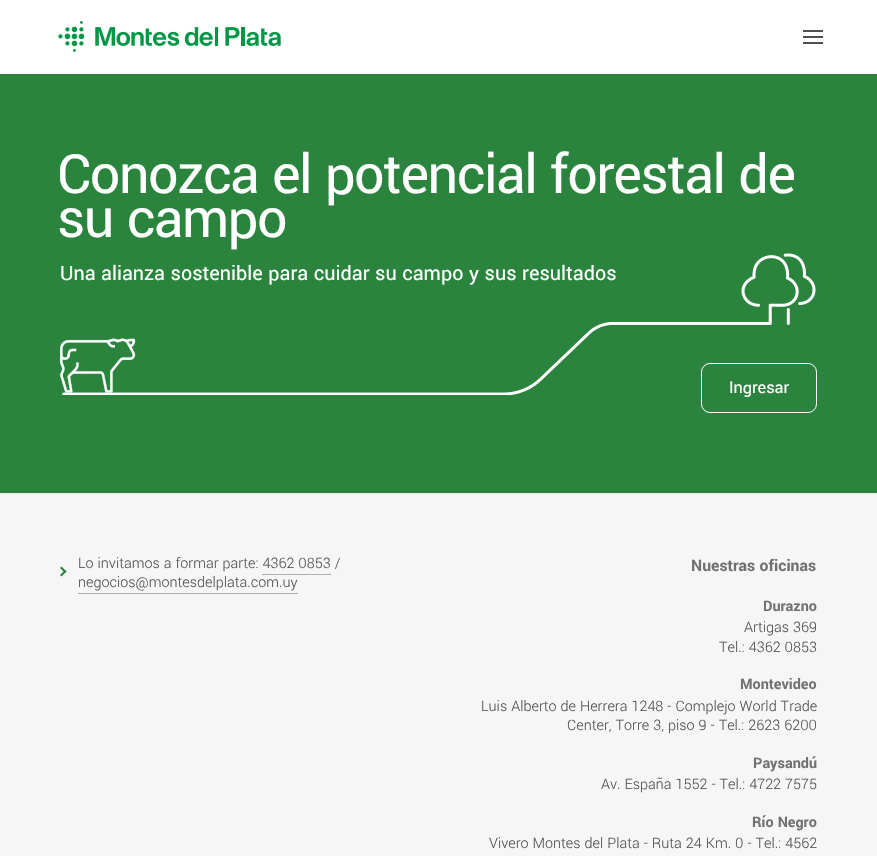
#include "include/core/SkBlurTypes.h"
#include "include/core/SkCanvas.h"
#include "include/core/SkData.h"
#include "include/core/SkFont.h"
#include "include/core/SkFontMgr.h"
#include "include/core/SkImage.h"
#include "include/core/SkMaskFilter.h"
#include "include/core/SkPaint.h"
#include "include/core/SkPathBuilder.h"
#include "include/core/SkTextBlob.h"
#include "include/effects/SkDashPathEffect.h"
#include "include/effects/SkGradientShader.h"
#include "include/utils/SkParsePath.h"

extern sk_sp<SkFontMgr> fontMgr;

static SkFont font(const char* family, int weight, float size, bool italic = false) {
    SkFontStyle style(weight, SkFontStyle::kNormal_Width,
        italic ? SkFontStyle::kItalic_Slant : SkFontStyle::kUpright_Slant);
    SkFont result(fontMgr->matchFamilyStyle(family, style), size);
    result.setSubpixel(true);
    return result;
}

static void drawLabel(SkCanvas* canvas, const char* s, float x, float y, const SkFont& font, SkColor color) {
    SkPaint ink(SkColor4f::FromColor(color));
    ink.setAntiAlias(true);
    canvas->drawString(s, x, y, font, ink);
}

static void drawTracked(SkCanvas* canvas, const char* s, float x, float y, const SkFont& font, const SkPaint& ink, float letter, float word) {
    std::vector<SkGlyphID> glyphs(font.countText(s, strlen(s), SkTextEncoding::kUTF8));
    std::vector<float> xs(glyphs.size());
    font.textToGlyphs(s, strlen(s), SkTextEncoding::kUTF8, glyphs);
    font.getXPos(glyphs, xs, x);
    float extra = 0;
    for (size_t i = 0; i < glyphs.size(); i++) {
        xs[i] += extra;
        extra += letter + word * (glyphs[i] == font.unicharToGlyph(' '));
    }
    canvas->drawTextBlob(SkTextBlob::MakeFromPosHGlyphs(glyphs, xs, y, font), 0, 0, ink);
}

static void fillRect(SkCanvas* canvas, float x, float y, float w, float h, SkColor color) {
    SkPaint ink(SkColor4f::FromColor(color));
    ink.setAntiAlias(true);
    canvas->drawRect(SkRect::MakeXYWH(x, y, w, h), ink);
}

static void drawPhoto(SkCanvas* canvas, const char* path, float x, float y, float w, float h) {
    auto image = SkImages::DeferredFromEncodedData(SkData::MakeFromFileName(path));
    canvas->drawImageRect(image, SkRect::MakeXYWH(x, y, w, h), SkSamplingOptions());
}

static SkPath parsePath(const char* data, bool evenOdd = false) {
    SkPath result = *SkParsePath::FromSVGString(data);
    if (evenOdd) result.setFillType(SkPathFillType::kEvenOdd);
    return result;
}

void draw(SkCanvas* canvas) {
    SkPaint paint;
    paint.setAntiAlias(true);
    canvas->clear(0xFFFFFFFF);
    fillRect(canvas, 0, 74, 877, 1, 0xFF2E7F40);
    drawPhoto(canvas, "assets/img1.png", 58, 21, 223, 31);
    fillRect(canvas, 803, 36, 20, 2, 0xFF505050);
    fillRect(canvas, 803, 30, 20, 2, 0xFF505050);
    fillRect(canvas, 803, 42, 20, 2, 0xFF505050);
    fillRect(canvas, 0, 75, 877, 418, 0xFF2A843E);
    SkFont font1 = font("Yantramanav", 400, 60);
    paint.setColor(0xFFFFFFFF);
    drawTracked(canvas, "Conozca el potencial forestal de", 57, 193, font1, paint, -1.5f, 0);
    drawTracked(canvas, "su campo", 57, 237, font1, paint, -1.5f, 0);
    SkFont font2 = font("Yantramanav", 400, 22);
    drawLabel(canvas, "Una alianza sostenible para cuidar su campo y sus resultados", 60, 280, font2, 0xFFFFFFFF);
    paint.setStroke(true);
    paint.setStrokeWidth(1);
    canvas->drawRoundRect(SkRect::MakeXYWH(701.5f, 363.5f, 115, 49), 8.5f, 8.5f, paint);
    SkFont font3 = font("Yantramanav", 400, 18);
    drawLabel(canvas, "Ingresar", 729, 393, font3, 0xFFFFFFFF);
    drawPhoto(canvas, "assets/img2.png", 60, 253, 756, 142);
    fillRect(canvas, 0, 494, 877, 362, 0xFFF6F6F6);
    fillRect(canvas, 0, 493, 877, 1, 0xFFE9E9E9);
    paint.setStroke(false);
    paint.setColor(0xFF2A843E);
    canvas->drawPath(parsePath("M61.5 566.5L66.5 571.5L65 573L60 568Z"), paint);
    canvas->drawPath(parsePath("M65 570L66.5 571.5L61.5 576.5L60 575Z"), paint);
    SkFont font4 = font("Yantramanav", 300, 16);
    drawLabel(canvas, "Lo invitamos a formar parte: 4362 0853 /", 78, 568, font4, 0xFF505050);
    fillRect(canvas, 262, 574, 69, 1, 0xFFAFAFAF);
    drawLabel(canvas, "negocios@montesdelplata.com.uy", 78, 587, font4, 0xFF505050);
    fillRect(canvas, 78, 593, 220, 1, 0xFFAFAFAF);
    SkFont font5 = font("Yantramanav", 700, 17.5f);
    drawLabel(canvas, "Nuestras oficinas", 691, 571, font5, 0xFF717171);
    SkFont font6 = font("Yantramanav", 700, 16);
    drawLabel(canvas, "Durazno", 763, 611, font6, 0xFF717171);
    drawLabel(canvas, "Artigas 369", 744, 632, font4, 0xFF505050);
    drawLabel(canvas, "Tel.: 4362 0853", 719, 652, font4, 0xFF505050);
    drawLabel(canvas, "Montevideo", 740, 689, font6, 0xFF717171);
    drawLabel(canvas, "Luis Alberto de Herrera 1248 - Complejo World Trade", 481, 711, font4, 0xFF505050);
    drawLabel(canvas, "Center, Torre 3, piso 9 - Tel.: 2623 6200", 567, 730, font4, 0xFF505050);
    drawLabel(canvas, "Paysandú", 753, 768, font6, 0xFF717171);
    drawLabel(canvas, "Av. España 1552 - Tel.: 4722 7575", 601, 789, font4, 0xFF505050);
    drawLabel(canvas, "Río Negro", 752, 827, font6, 0xFF717171);
    drawLabel(canvas, "Vivero Montes del Plata - Ruta 24 Km. 0 - Tel.: 4562", 489, 848, font4, 0xFF505050);
}
